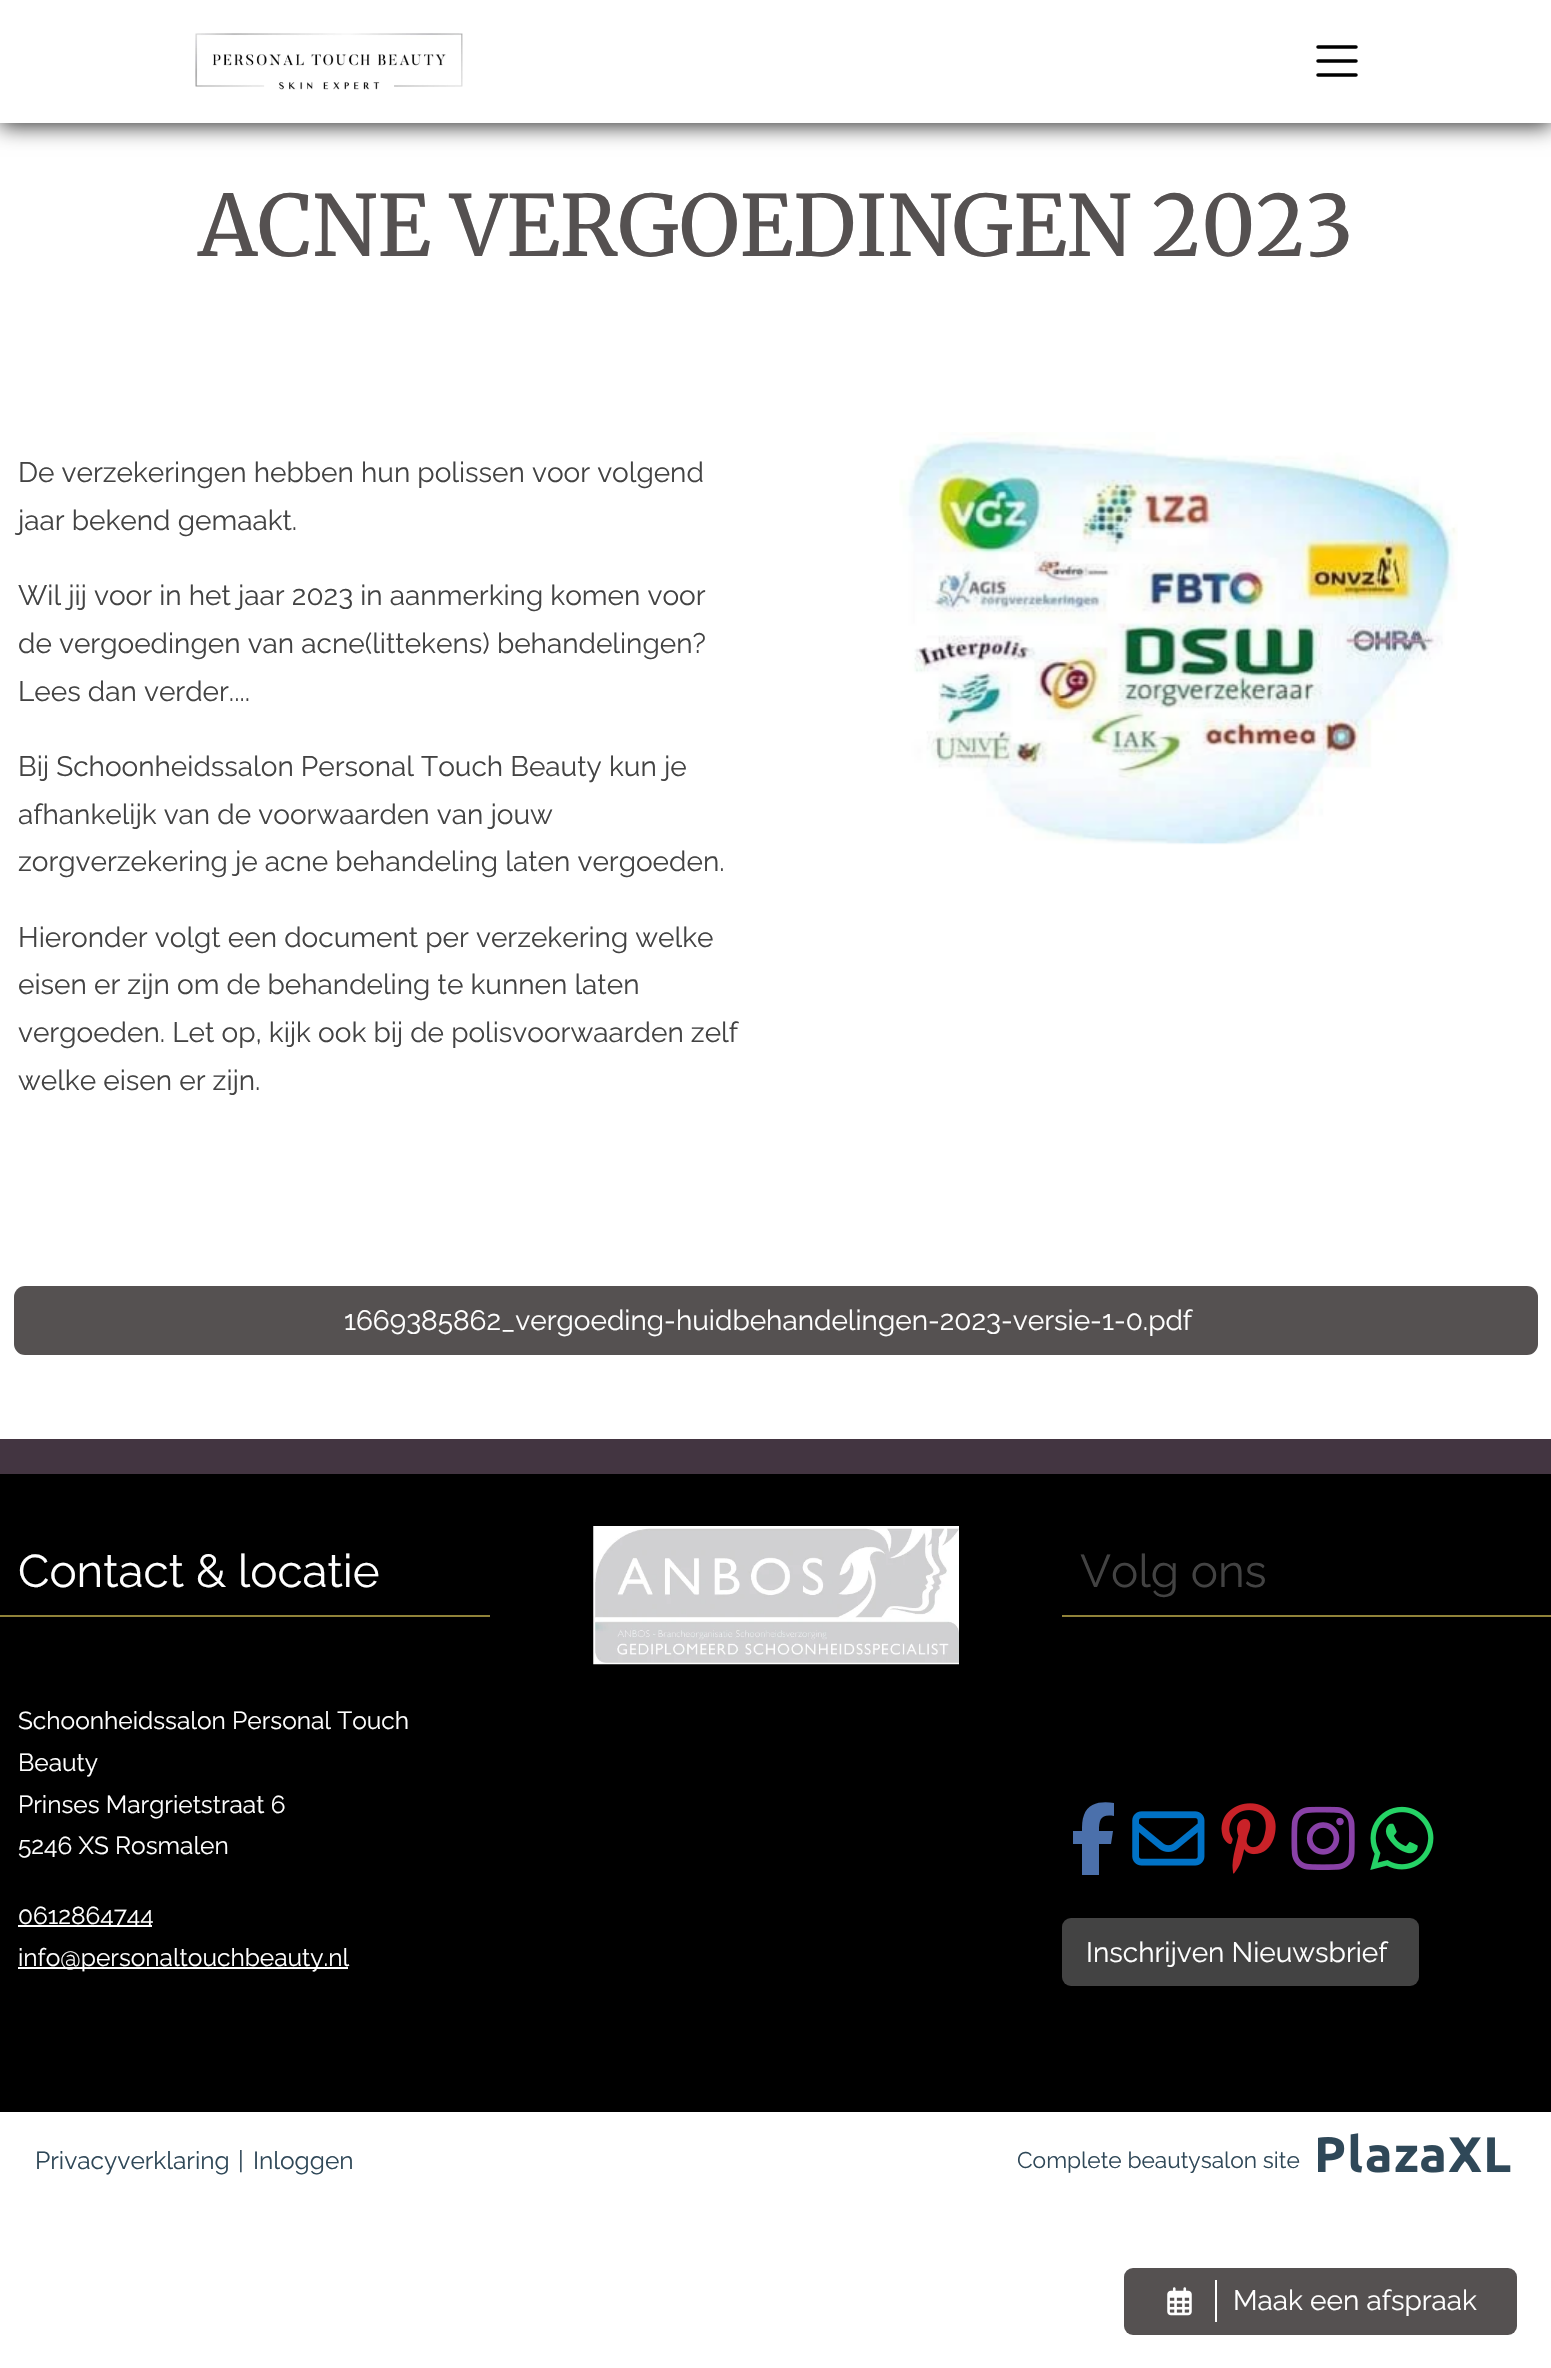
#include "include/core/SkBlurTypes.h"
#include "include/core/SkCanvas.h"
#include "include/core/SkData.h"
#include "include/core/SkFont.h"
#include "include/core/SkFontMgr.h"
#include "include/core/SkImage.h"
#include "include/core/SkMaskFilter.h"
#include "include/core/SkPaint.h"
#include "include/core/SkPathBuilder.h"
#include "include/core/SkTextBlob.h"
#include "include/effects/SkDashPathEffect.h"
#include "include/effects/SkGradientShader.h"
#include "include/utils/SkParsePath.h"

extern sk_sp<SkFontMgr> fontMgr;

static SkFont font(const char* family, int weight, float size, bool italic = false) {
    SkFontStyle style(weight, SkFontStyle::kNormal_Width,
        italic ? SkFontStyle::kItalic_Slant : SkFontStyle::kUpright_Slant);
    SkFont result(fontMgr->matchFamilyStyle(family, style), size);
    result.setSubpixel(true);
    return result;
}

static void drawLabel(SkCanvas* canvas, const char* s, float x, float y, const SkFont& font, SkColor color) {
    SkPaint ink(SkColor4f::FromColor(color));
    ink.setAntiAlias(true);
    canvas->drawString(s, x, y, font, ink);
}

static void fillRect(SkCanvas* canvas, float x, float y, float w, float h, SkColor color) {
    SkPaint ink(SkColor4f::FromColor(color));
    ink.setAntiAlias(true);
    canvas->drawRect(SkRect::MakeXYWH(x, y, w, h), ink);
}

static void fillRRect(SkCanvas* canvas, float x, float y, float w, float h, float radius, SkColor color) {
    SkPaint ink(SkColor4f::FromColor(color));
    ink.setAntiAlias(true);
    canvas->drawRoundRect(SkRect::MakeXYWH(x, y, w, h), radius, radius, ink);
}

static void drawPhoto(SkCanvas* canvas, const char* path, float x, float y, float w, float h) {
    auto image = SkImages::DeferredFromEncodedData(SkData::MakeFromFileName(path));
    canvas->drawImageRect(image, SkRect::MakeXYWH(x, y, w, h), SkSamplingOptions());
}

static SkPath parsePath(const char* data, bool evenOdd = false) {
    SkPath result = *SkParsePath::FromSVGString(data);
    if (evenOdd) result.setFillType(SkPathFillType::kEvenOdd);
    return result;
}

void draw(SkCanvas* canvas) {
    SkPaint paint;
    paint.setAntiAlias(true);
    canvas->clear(0xFFFFFFFF);
    paint.setColor(0xCC000000);
    paint.setMaskFilter(SkMaskFilter::MakeBlur(kNormal_SkBlurStyle, 10.5f));
    canvas->drawRect(SkRect::MakeXYWH(0, 4, 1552, 122), paint);
    paint.setMaskFilter(nullptr);
    fillRect(canvas, 0, 0, 1551, 123, 0xFFFFFFFF);
    drawPhoto(canvas, "assets/img1.png", 195, 33, 268, 57);
    paint.setStroke(true);
    paint.setStrokeWidth(3.5f);
    paint.setStrokeCap(SkPaint::kRound_Cap);
    paint.setColor(0xFF000000);
    canvas->drawPath(parsePath("M1318 47H1356M1318 61H1356M1318 75H1356"), paint);
    SkFont font1 = font("Merriweather", 300, 84);
    drawLabel(canvas, "ACNE VERGOEDINGEN 2023", 198, 256, font1, 0xFF555151);
    SkFont font2 = font("Raleway", 100, 28);
    drawLabel(canvas, "De verzekeringen hebben hun polissen voor volgend", 18, 482, font2, 0xFF434343);
    drawLabel(canvas, "jaar bekend gemaakt.", 18, 530, font2, 0xFF434343);
    drawLabel(canvas, "Wil jij voor in het jaar 2023 in aanmerking komen voor", 18, 605, font2, 0xFF434343);
    drawLabel(canvas, "de vergoedingen van acne(littekens) behandelingen?", 18, 653, font2, 0xFF434343);
    drawLabel(canvas, "Lees dan verder....", 18, 701, font2, 0xFF434343);
    drawLabel(canvas, "Bij Schoonheidssalon Personal Touch Beauty kun je", 18, 776, font2, 0xFF434343);
    drawLabel(canvas, "afhankelijk van de voorwaarden van jouw", 18, 824, font2, 0xFF434343);
    drawLabel(canvas, "zorgverzekering je acne behandeling laten vergoeden.", 18, 871, font2, 0xFF434343);
    drawLabel(canvas, "Hieronder volgt een document per verzekering welke", 18, 947, font2, 0xFF434343);
    drawLabel(canvas, "eisen er zijn om de behandeling te kunnen laten", 18, 994, font2, 0xFF434343);
    drawLabel(canvas, "vergoeden. Let op, kijk ook bij de polisvoorwaarden zelf", 18, 1042, font2, 0xFF434343);
    drawLabel(canvas, "welke eisen er zijn.", 18, 1090, font2, 0xFF434343);
    drawPhoto(canvas, "assets/img2.png", 899, 432, 559, 413);
    fillRRect(canvas, 14, 1286, 1524, 69, 11, 0xFF555151);
    drawLabel(canvas, "1669385862_vergoeding-huidbehandelingen-2023-versie-1-0.pdf", 344, 1330, font2, 0xFFFFFFFF);
    fillRect(canvas, 0, 1439, 1551, 35, 0xFF433541);
    fillRect(canvas, 0, 1474, 1551, 638, 0xFF000000);
    fillRect(canvas, 0, 1615, 490, 2, 0xFF908239);
    SkFont font3 = font("Raleway", 100, 45.75f);
    drawLabel(canvas, "Contact & locatie", 18, 1587, font3, 0xFFFFFFFF);
    SkFont font4 = font("Raleway", 100, 24.5f);
    drawLabel(canvas, "Schoonheidssalon Personal Touch", 18, 1729, font4, 0xFFFFFFFF);
    drawLabel(canvas, "Beauty", 18, 1771, font4, 0xFFFFFFFF);
    drawLabel(canvas, "Prinses Margrietstraat 6", 18, 1813, font4, 0xFFFFFFFF);
    drawLabel(canvas, "5246 XS Rosmalen", 18, 1854, font4, 0xFFFFFFFF);
    fillRect(canvas, 18, 1925, 134, 2, 0xFFFFFFFF);
    drawLabel(canvas, "0612864744", 18, 1924, font4, 0xFFFFFFFF);
    fillRect(canvas, 18, 1967, 330, 2, 0xFFFFFFFF);
    drawLabel(canvas, "info@personaltouchbeauty.nl", 18, 1966, font4, 0xFFFFFFFF);
    drawPhoto(canvas, "assets/img3.png", 593, 1526, 366, 139);
    fillRect(canvas, 1062, 1615, 489, 2, 0xFF908239);
    drawLabel(canvas, "Volg ons", 1080, 1587, font3, 0xFF434343);
    paint.setStroke(false);
    paint.setColor(0xFF4B70AB);
    canvas->drawPath(parsePath("M1082 1844V1875V1844V1875H1099V1844H1111L1113 1831H1099C1099 1819 1101 1814 1114 1816V1803C1103 1801 1088 1802 1084 1815C1082 1820 1082 1825 1082 1831H1073V1844Z"), paint);
    drawPhoto(canvas, "assets/img4.png", 1132, 1811, 73, 55);
    drawPhoto(canvas, "assets/img5.png", 1221, 1803, 55, 71);
    drawPhoto(canvas, "assets/img6.png", 1291, 1806, 64, 64);
    drawPhoto(canvas, "assets/img7.png", 1370, 1806, 64, 64);
    fillRRect(canvas, 1062, 1918, 357, 68, 9, 0xFF434343);
    drawLabel(canvas, "Inschrijven Nieuwsbrief", 1086, 1962, font2, 0xFFFFFFFF);
    fillRRect(canvas, 1124, 2268, 393, 67, 9, 0xFF555151);
    fillRect(canvas, 1215, 2280, 2, 42, 0xFFFFFFFF);
    drawPhoto(canvas, "assets/img8.png", 1167, 2287, 25, 29);
    drawLabel(canvas, "Maak een afspraak", 1233, 2310, font2, 0xFFFFFFFF);
    drawLabel(canvas, "Privacyverklaring", 35, 2169, font4, 0xFF2F4858);
    drawLabel(canvas, "|", 238, 2169, font4, 0xFF2F4858);
    drawLabel(canvas, "Inloggen", 253, 2169, font4, 0xFF2F4858);
    SkFont font5 = font("Raleway", 100, 22.75f);
    drawLabel(canvas, "Complete beautysalon site", 1017, 2168, font5, 0xFF2F4858);
    drawPhoto(canvas, "assets/img9.png", 1318, 2133, 193, 40);
}
